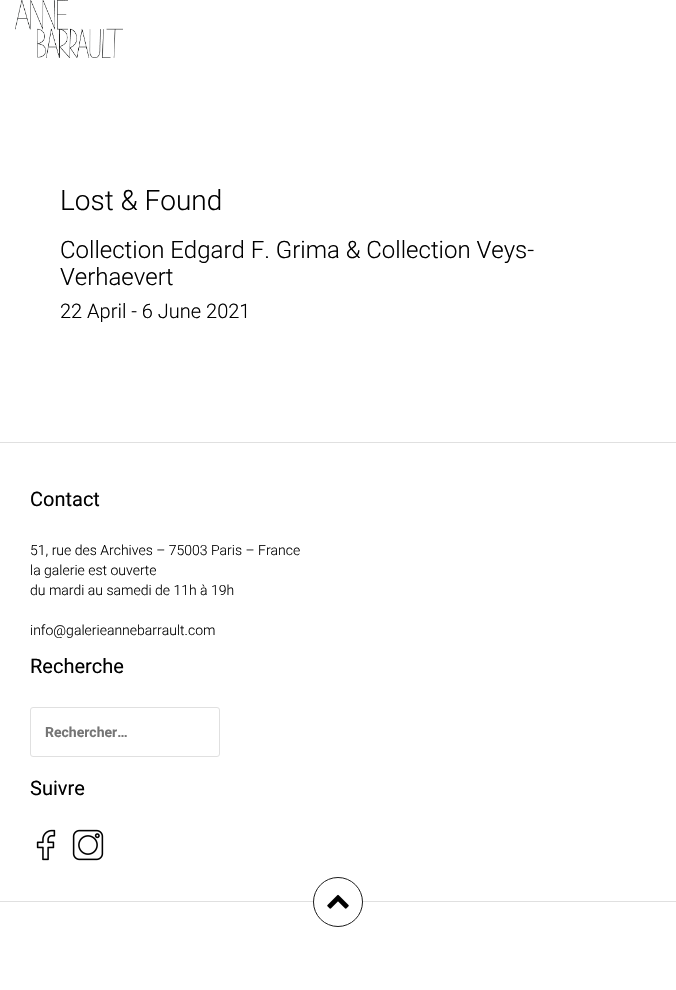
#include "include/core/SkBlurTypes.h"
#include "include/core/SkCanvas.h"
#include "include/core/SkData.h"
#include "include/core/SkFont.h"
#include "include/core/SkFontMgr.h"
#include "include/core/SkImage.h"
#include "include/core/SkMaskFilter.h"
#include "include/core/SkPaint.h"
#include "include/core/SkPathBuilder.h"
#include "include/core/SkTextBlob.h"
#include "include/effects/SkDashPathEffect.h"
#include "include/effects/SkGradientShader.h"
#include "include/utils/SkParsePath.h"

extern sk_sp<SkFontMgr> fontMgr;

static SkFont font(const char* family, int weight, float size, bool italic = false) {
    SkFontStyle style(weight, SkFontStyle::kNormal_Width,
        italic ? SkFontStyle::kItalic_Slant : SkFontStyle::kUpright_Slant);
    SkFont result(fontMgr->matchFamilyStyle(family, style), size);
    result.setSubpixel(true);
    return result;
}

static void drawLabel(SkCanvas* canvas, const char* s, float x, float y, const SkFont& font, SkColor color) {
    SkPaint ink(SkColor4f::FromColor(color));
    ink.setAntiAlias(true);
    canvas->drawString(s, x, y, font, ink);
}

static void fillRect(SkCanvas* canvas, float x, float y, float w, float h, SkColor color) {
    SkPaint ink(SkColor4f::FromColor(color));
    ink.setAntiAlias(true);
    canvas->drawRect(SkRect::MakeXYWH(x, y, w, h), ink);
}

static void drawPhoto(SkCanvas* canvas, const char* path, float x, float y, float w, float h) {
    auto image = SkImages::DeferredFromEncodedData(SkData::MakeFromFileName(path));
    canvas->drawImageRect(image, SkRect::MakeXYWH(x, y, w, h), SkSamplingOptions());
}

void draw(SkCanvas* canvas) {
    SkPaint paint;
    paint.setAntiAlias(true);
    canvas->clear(0xFFFFFFFF);
    drawPhoto(canvas, "assets/img1.png", 15, 0, 108, 58);
    SkFont font1 = font("Roboto", 300, 28);
    drawLabel(canvas, "Lost & Found", 60, 210, font1, 0xFF000000);
    SkFont font2 = font("Roboto", 300, 24);
    drawLabel(canvas, "Collection Edgard F. Grima & Collection Veys-", 60, 258, font2, 0xFF000000);
    drawLabel(canvas, "Verhaevert", 60, 285, font2, 0xFF000000);
    SkFont font3 = font("Roboto", 300, 20);
    drawLabel(canvas, "22 April - 6 June 2021", 60, 318, font3, 0xFF000000);
    fillRect(canvas, 0, 442, 676, 1, 0xFFE0E0E0);
    SkFont font4 = font("Roboto", 400, 20);
    drawLabel(canvas, "Contact", 30, 506, font4, 0xFF000000);
    SkFont font5 = font("Roboto", 300, 14);
    drawLabel(canvas, "51, rue des Archives – 75003 Paris – France", 30, 555, font5, 0xFF000000);
    drawLabel(canvas, "la galerie est ouverte", 30, 575, font5, 0xFF000000);
    drawLabel(canvas, "du mardi au samedi de 11h à 19h", 30, 595, font5, 0xFF000000);
    drawLabel(canvas, "info@galerieannebarrault.com", 30, 635, font5, 0xFF000000);
    drawLabel(canvas, "Recherche", 30, 673, font4, 0xFF000000);
    paint.setStroke(true);
    paint.setStrokeWidth(1);
    paint.setColor(0xFFE0E0E0);
    canvas->drawRoundRect(SkRect::MakeXYWH(30.5f, 707.5f, 189, 49), 2.5f, 2.5f, paint);
    SkFont font6 = font("Roboto", 700, 14);
    drawLabel(canvas, "Rechercher…", 45, 737, font6, 0xFF757575);
    drawLabel(canvas, "Suivre", 30, 795, font4, 0xFF000000);
    drawPhoto(canvas, "assets/img2.png", 36, 829, 20, 32);
    drawPhoto(canvas, "assets/img3.png", 72, 829, 32, 32);
    fillRect(canvas, 0, 901, 676, 1, 0xFFE0E0E0);
    paint.setStroke(false);
    paint.setColor(0xFFFFFFFF);
    canvas->drawCircle(338, 902, 24.5f, paint);
    paint.setStroke(true);
    paint.setColor(0xFF1C1C1C);
    canvas->drawCircle(338, 902, 24.5f, paint);
    drawPhoto(canvas, "assets/img4.png", 327, 894, 22, 15);
}
